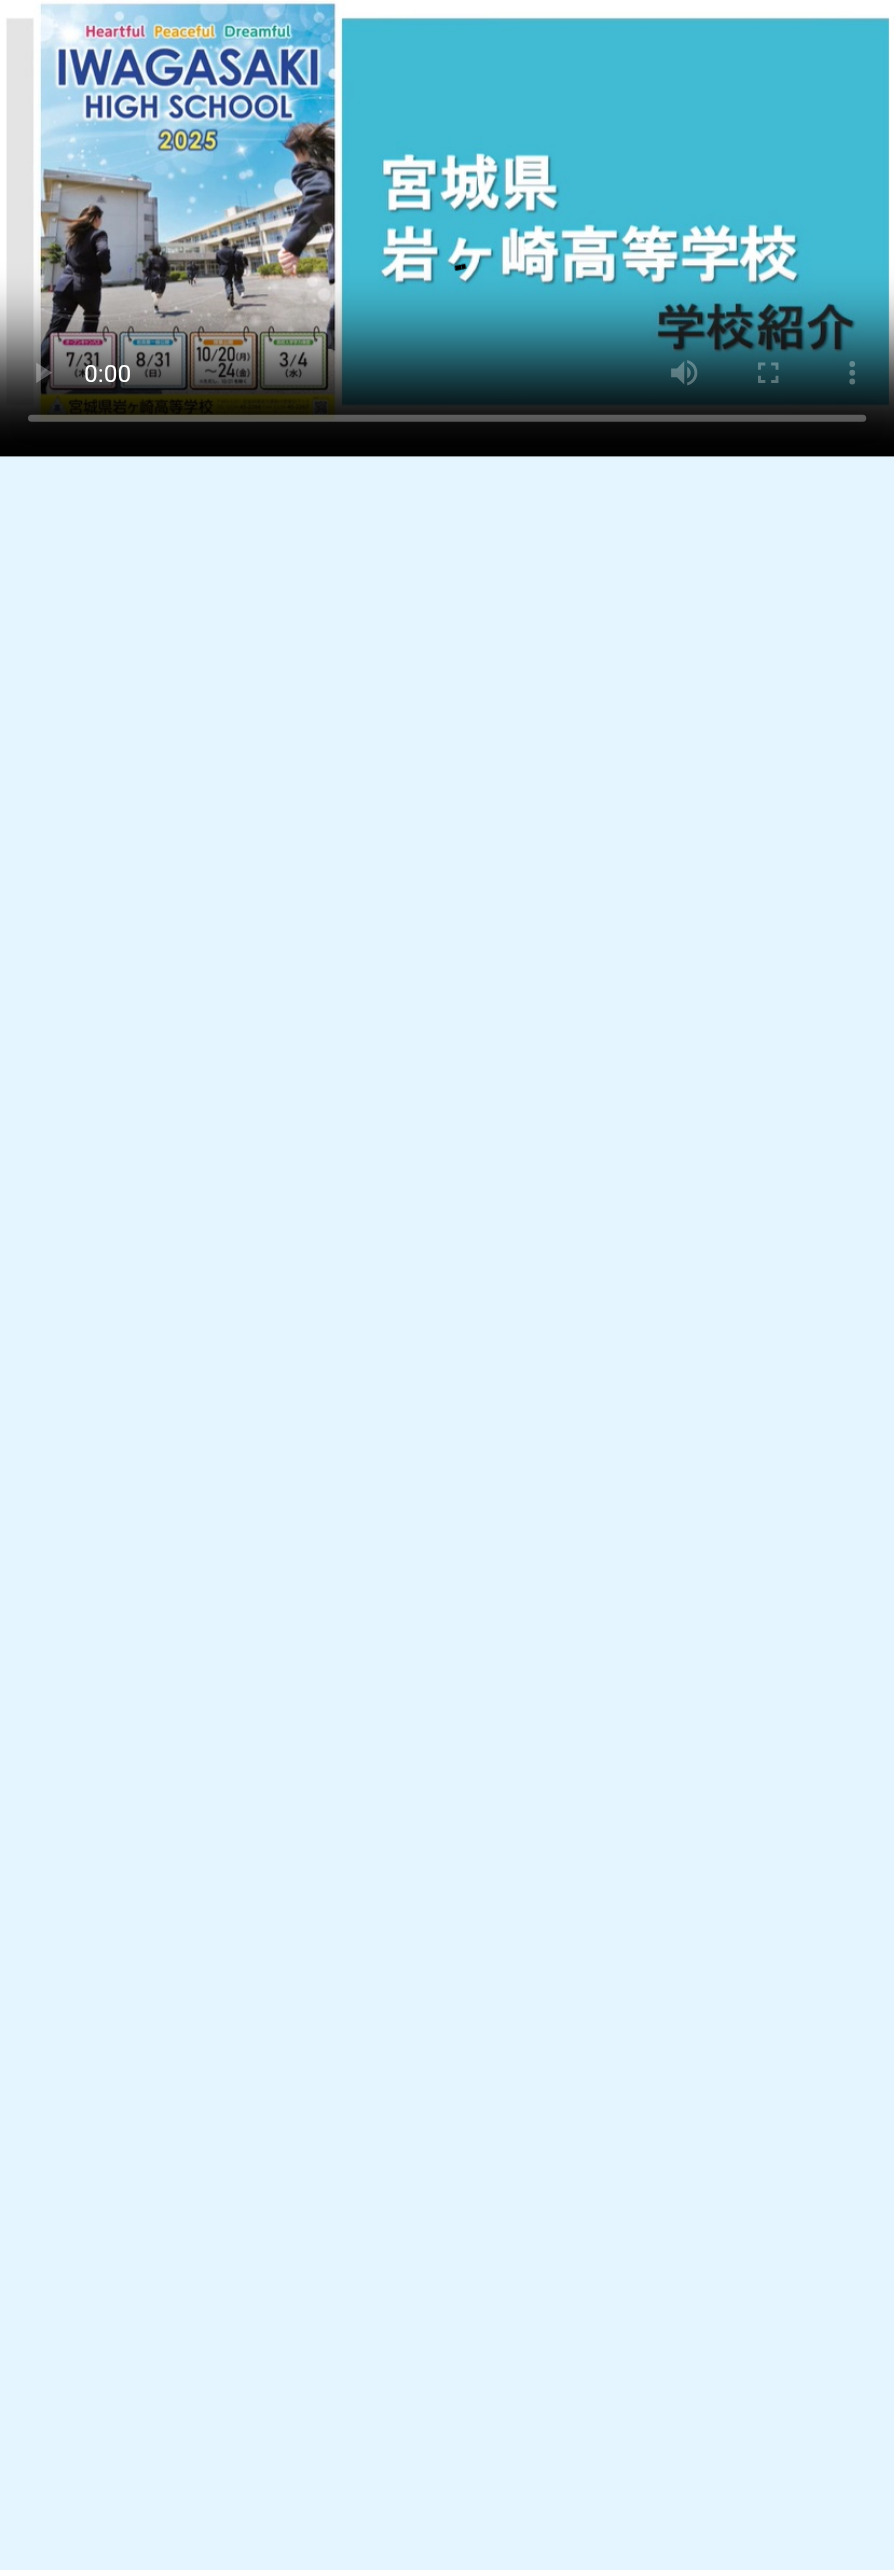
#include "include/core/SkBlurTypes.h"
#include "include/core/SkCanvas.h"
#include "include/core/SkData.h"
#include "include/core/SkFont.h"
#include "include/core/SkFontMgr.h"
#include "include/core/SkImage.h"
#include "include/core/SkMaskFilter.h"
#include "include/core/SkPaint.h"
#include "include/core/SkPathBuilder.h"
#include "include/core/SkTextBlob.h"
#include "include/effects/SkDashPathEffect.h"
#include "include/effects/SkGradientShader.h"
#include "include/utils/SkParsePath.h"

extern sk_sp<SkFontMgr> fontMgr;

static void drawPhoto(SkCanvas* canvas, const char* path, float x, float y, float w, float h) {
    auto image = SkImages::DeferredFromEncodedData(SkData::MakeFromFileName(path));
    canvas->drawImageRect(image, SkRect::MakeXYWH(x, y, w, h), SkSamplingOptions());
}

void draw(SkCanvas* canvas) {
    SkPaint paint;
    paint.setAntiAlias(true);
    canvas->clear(0xFFE5F5FF);
    drawPhoto(canvas, "assets/img1.png", 0, 0, 894, 457);
}
